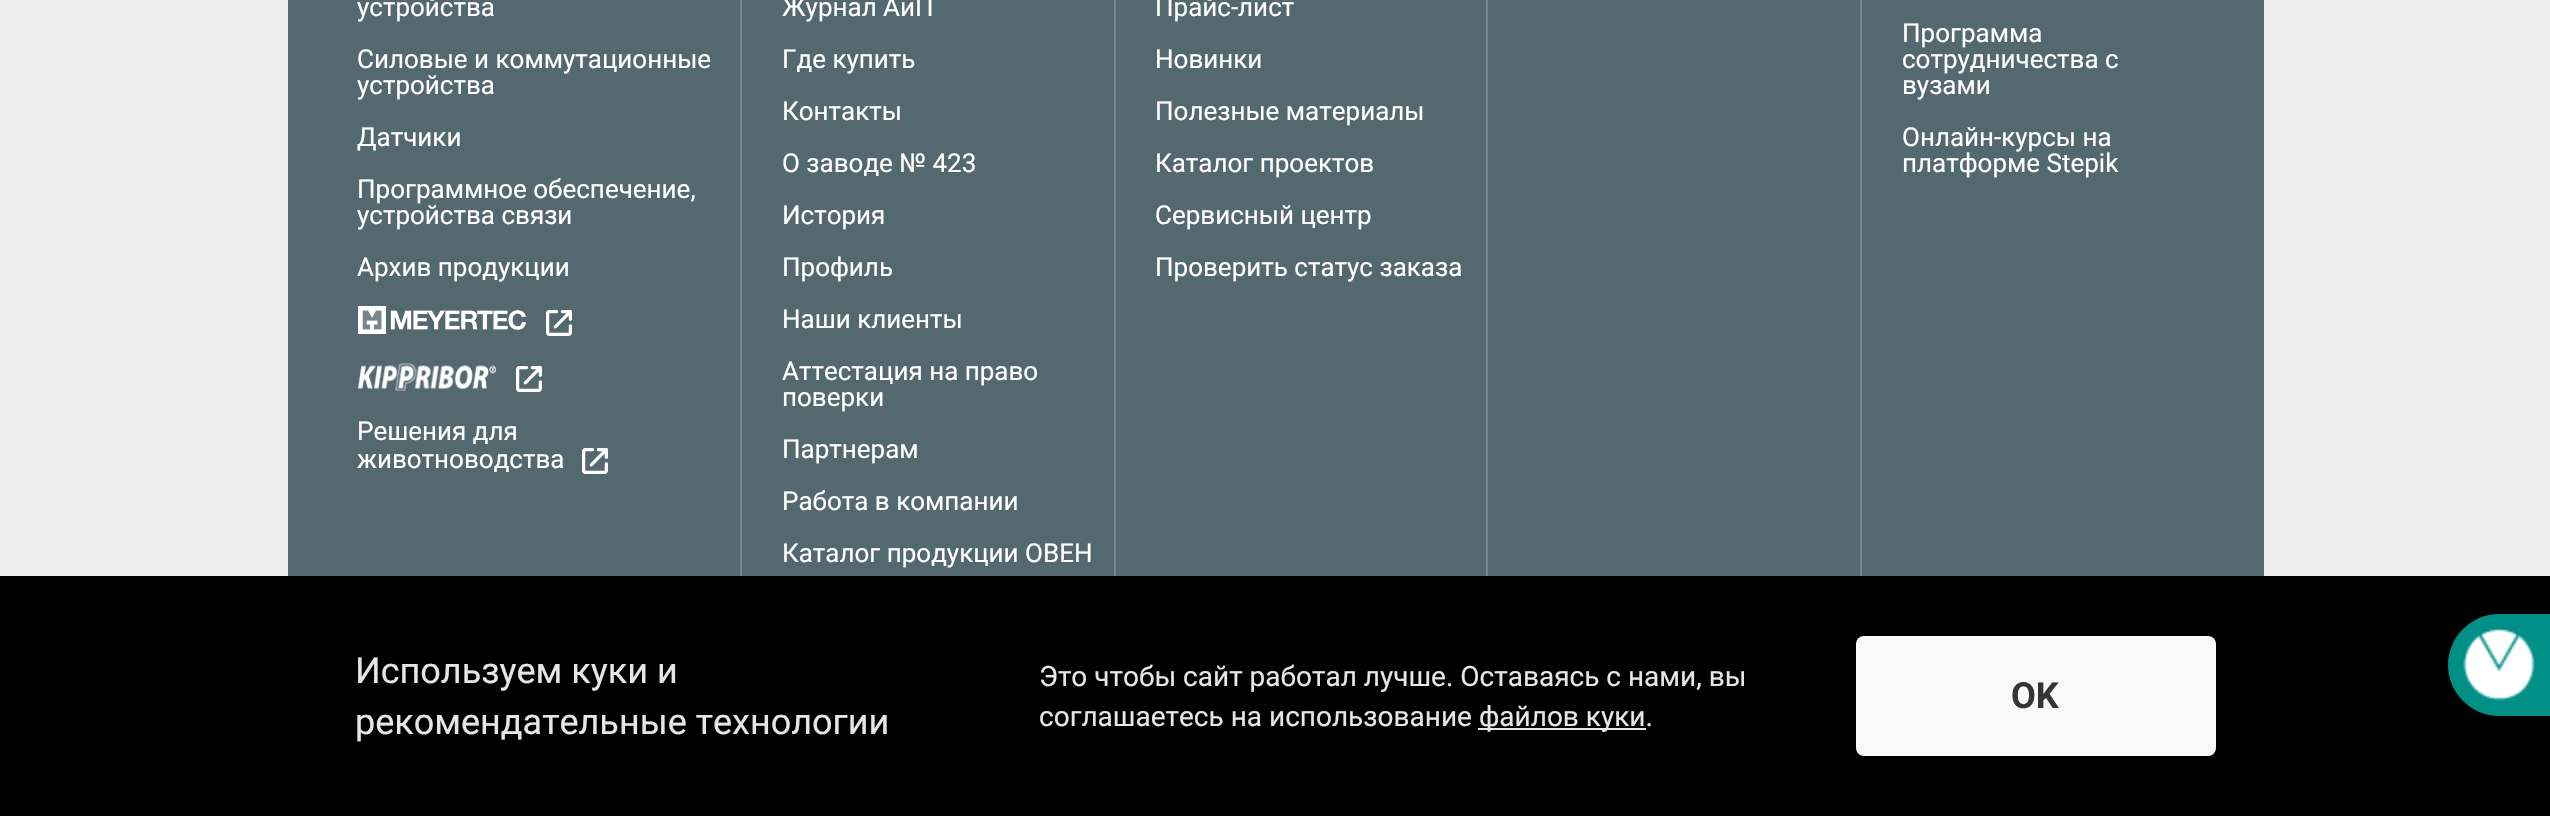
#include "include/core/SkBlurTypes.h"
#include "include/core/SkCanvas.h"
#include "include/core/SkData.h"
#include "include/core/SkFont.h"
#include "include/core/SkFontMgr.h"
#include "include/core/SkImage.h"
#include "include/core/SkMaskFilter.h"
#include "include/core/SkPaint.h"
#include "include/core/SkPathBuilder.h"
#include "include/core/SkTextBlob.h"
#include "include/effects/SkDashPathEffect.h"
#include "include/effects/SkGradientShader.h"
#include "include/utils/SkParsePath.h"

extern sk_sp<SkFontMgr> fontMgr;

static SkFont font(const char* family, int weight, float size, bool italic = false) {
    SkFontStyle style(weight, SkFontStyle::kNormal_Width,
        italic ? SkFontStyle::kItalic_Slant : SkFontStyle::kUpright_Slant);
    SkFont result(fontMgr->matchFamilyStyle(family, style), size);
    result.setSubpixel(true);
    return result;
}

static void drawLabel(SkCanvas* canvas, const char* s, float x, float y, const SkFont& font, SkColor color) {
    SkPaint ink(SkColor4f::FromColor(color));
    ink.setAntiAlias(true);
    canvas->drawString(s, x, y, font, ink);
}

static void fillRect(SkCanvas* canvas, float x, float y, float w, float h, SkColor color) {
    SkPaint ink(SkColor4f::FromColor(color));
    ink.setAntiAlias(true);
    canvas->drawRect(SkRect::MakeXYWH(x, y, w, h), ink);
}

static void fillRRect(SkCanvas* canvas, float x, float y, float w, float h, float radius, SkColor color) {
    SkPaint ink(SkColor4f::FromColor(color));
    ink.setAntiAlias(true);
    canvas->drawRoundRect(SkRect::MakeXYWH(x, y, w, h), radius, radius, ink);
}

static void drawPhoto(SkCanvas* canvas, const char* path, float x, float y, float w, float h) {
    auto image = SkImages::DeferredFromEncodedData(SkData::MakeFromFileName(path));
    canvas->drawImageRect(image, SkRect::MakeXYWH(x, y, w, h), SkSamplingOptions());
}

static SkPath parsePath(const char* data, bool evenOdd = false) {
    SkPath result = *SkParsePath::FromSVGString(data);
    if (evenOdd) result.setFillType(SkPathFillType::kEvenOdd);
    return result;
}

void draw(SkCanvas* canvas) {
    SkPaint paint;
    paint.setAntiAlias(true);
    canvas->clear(0xFFEDEDED);
    fillRect(canvas, 288, 0, 1976, 576, 0xFF54686F);
    SkFont font1 = font("Roboto", 400, 26);
    drawLabel(canvas, "устройства", 357, 16, font1, 0xFFFFFFFF);
    drawLabel(canvas, "Силовые и коммутационные", 357, 68, font1, 0xFFFFFFFF);
    drawLabel(canvas, "устройства", 357, 94, font1, 0xFFFFFFFF);
    drawLabel(canvas, "Датчики", 357, 146, font1, 0xFFFFFFFF);
    drawLabel(canvas, "Программное обеспечение,", 357, 198, font1, 0xFFFFFFFF);
    drawLabel(canvas, "устройства связи", 357, 224, font1, 0xFFFFFFFF);
    drawLabel(canvas, "Архив продукции", 357, 276, font1, 0xFFFFFFFF);
    drawPhoto(canvas, "assets/img1.png", 358, 306, 168, 28);
    drawPhoto(canvas, "assets/img2.png", 546, 310, 26, 26);
    drawPhoto(canvas, "assets/img3.png", 358, 363, 138, 28);
    drawPhoto(canvas, "assets/img2.png", 516, 366, 26, 26);
    drawLabel(canvas, "Решения для", 357, 440, font1, 0xFFFFFFFF);
    drawLabel(canvas, "животноводства", 357, 468, font1, 0xFFFFFFFF);
    drawPhoto(canvas, "assets/img2.png", 582, 448, 26, 26);
    fillRect(canvas, 740, 0, 2, 576, 0xFF76868C);
    drawLabel(canvas, "Журнал АиП", 782, 16, font1, 0xFFFFFFFF);
    drawLabel(canvas, "Где купить", 782, 68, font1, 0xFFFFFFFF);
    drawLabel(canvas, "Контакты", 782, 120, font1, 0xFFFFFFFF);
    drawLabel(canvas, "О заводе № 423", 782, 172, font1, 0xFFFFFFFF);
    drawLabel(canvas, "История", 782, 224, font1, 0xFFFFFFFF);
    drawLabel(canvas, "Профиль", 782, 276, font1, 0xFFFFFFFF);
    drawLabel(canvas, "Наши клиенты", 782, 328, font1, 0xFFFFFFFF);
    drawLabel(canvas, "Аттестация на право", 782, 380, font1, 0xFFFFFFFF);
    drawLabel(canvas, "поверки", 782, 406, font1, 0xFFFFFFFF);
    drawLabel(canvas, "Партнерам", 782, 458, font1, 0xFFFFFFFF);
    drawLabel(canvas, "Работа в компании", 782, 510, font1, 0xFFFFFFFF);
    drawLabel(canvas, "Каталог продукции ОВЕН", 782, 562, font1, 0xFFFFFFFF);
    fillRect(canvas, 1114, 0, 2, 576, 0xFF76868C);
    drawLabel(canvas, "Прайс-лист", 1155, 16, font1, 0xFFFFFFFF);
    drawLabel(canvas, "Новинки", 1155, 68, font1, 0xFFFFFFFF);
    drawLabel(canvas, "Полезные материалы", 1155, 120, font1, 0xFFFFFFFF);
    drawLabel(canvas, "Каталог проектов", 1155, 172, font1, 0xFFFFFFFF);
    drawLabel(canvas, "Сервисный центр", 1155, 224, font1, 0xFFFFFFFF);
    drawLabel(canvas, "Проверить статус заказа", 1155, 276, font1, 0xFFFFFFFF);
    fillRect(canvas, 1486, 0, 2, 576, 0xFF76868C);
    fillRect(canvas, 1860, 0, 2, 576, 0xFF76868C);
    drawLabel(canvas, "Программа", 1902, 42, font1, 0xFFFFFFFF);
    drawLabel(canvas, "сотрудничества с", 1902, 68, font1, 0xFFFFFFFF);
    drawLabel(canvas, "вузами", 1902, 94, font1, 0xFFFFFFFF);
    drawLabel(canvas, "Онлайн-курсы на", 1902, 146, font1, 0xFFFFFFFF);
    drawLabel(canvas, "платформе Stepik", 1902, 172, font1, 0xFFFFFFFF);
    fillRect(canvas, 0, 576, 2550, 240, 0xFF000000);
    SkFont font2 = font("Roboto", 400, 36);
    drawLabel(canvas, "Используем куки и", 355, 683, font2, 0xFFE6E6E6);
    drawLabel(canvas, "рекомендательные технологии", 355, 734, font2, 0xFFE6E6E6);
    SkFont font3 = font("Roboto", 400, 28);
    drawLabel(canvas, "Это чтобы сайт работал лучше. Оставаясь с нами, вы", 1039, 686, font3, 0xFFE6E6E6);
    drawLabel(canvas, "соглашаетесь на использование", 1039, 726, font3, 0xFFE6E6E6);
    fillRect(canvas, 1478, 728, 168, 2, 0xFFE6E6E6);
    drawLabel(canvas, "файлов куки.", 1479, 726, font3, 0xFFE6E6E6);
    fillRRect(canvas, 1856, 636, 360, 120, 8, 0xFFF9F9F9);
    SkFont font4 = font("Roboto", 700, 36);
    drawLabel(canvas, "OK", 2011, 708, font4, 0xFF343536);
    paint.setColor(0xFF008F86);
    canvas->drawPath(parsePath("M2499 614H2550V716H2499C2471 716 2448 693 2448 665C2448 637 2471 614 2499 614Z"), paint);
    drawPhoto(canvas, "assets/img4.png", 2463, 629, 72, 72);
}
